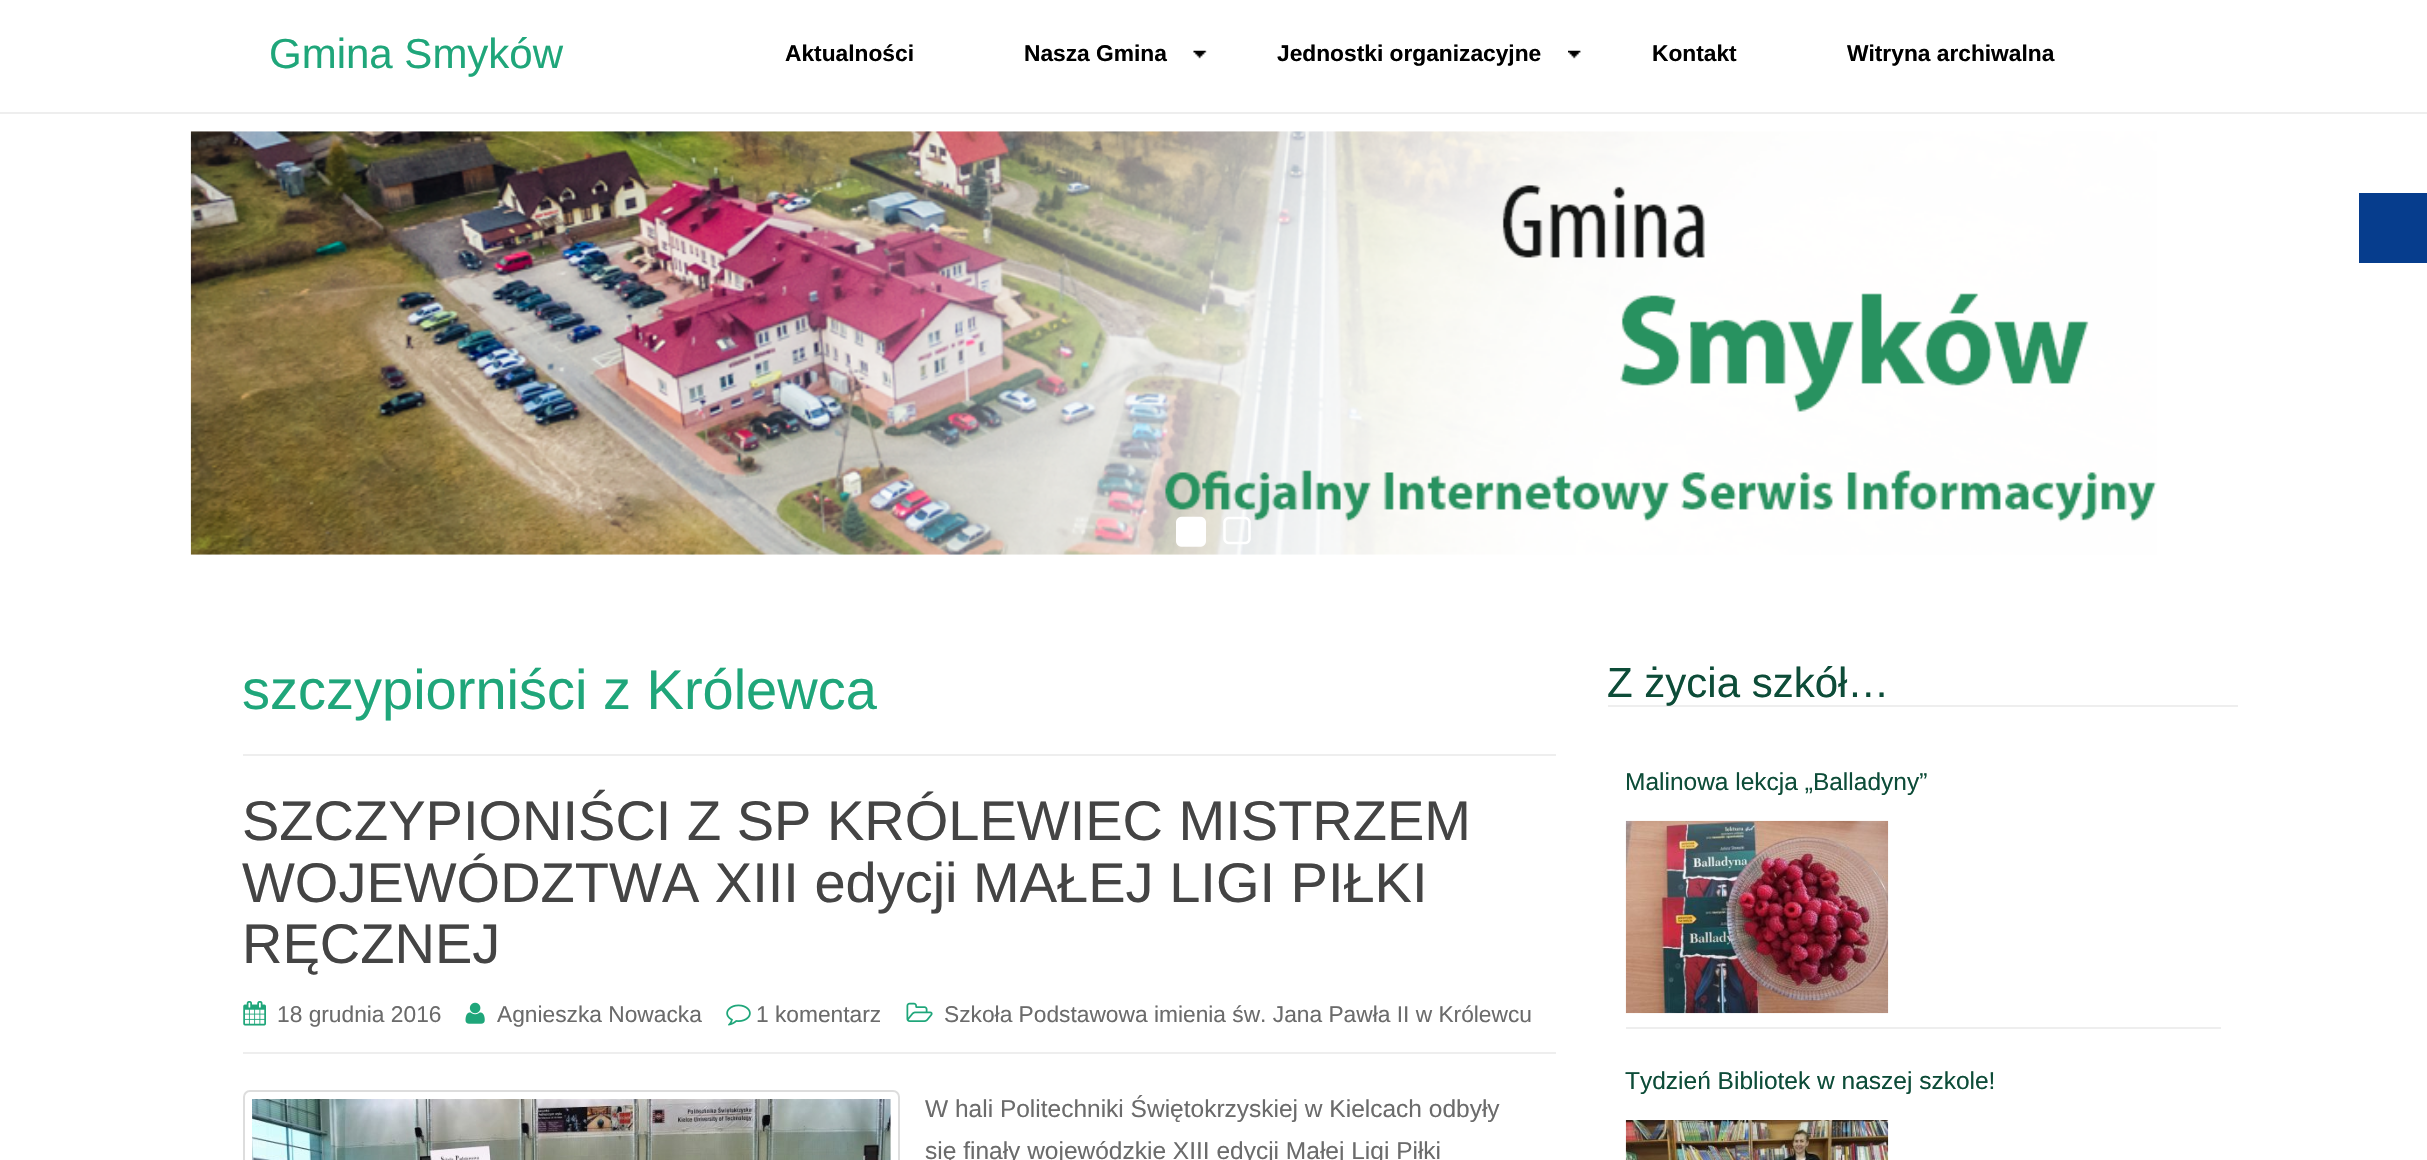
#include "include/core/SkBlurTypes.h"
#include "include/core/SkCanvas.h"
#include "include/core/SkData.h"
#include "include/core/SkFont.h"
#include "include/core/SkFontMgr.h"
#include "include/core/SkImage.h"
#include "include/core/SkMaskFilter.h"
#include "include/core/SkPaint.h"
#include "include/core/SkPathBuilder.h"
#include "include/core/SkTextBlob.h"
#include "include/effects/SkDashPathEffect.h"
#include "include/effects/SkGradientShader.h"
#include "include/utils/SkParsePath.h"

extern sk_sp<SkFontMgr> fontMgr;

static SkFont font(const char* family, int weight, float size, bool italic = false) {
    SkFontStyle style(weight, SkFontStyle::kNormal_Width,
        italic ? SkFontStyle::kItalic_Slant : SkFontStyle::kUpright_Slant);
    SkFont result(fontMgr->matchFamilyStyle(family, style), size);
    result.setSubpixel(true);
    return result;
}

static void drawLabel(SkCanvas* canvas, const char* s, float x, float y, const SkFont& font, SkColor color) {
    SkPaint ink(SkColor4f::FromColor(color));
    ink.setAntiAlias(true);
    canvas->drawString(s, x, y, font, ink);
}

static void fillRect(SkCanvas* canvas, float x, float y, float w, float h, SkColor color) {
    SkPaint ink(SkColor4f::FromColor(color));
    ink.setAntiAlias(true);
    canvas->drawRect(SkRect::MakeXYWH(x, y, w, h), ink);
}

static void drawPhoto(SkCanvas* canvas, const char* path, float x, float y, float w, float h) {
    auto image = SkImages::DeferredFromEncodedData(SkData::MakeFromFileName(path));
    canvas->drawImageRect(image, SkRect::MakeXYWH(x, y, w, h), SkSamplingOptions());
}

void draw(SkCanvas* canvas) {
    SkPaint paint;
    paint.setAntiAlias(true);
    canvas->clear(0xFFFFFFFF);
    fillRect(canvas, 0, 112, 2427, 2, 0xFFEEEEEE);
    SkFont font1 = font("Liberation Sans", 400, 42);
    drawLabel(canvas, "Gmina Smyków", 269, 68, font1, 0xFF1FA67A);
    SkFont font2 = font("Liberation Sans", 700, 22.75f);
    drawLabel(canvas, "Aktualności", 785, 61, font2, 0xFF000000);
    drawLabel(canvas, "Nasza Gmina", 1024, 61, font2, 0xFF000000);
    drawPhoto(canvas, "assets/img1.png", 1193, 50, 14, 9);
    drawLabel(canvas, "Jednostki organizacyjne", 1277, 61, font2, 0xFF000000);
    drawPhoto(canvas, "assets/img2.png", 1568, 50, 13, 9);
    drawLabel(canvas, "Kontakt", 1652, 61, font2, 0xFF000000);
    drawLabel(canvas, "Witryna archiwalna", 1847, 61, font2, 0xFF000000);
    fillRect(canvas, 2359, 193, 68, 70, 0xFF063D8D);
    drawPhoto(canvas, "assets/img3.png", 190, 131, 1967, 424);
    drawPhoto(canvas, "assets/img4.png", 1176, 516, 30, 31);
    drawPhoto(canvas, "assets/img5.png", 1223, 516, 28, 29);
    fillRect(canvas, 243, 754, 1313, 2, 0xFFEEEEEE);
    SkFont font3 = font("Liberation Sans", 400, 56);
    drawLabel(canvas, "szczypiorniści z Królewca", 242, 709, font3, 0xFF1FA67A);
    fillRect(canvas, 243, 1052, 1313, 2, 0xFFEEEEEE);
    drawLabel(canvas, "SZCZYPIONIŚCI Z SP KRÓLEWIEC MISTRZEM", 242, 840, font3, 0xFF444444);
    drawLabel(canvas, "WOJEWÓDZTWA XIII edycji MAŁEJ LIGI PIŁKI", 242, 902, font3, 0xFF444444);
    drawLabel(canvas, "RĘCZNEJ", 242, 963, font3, 0xFF444444);
    drawPhoto(canvas, "assets/img6.png", 243, 1001, 23, 25);
    SkFont font4 = font("Liberation Sans", 400, 22.75f);
    drawLabel(canvas, "18 grudnia 2016", 277, 1022, font4, 0xFF6B6B6B);
    drawPhoto(canvas, "assets/img7.png", 465, 1002, 20, 22);
    drawLabel(canvas, "Agnieszka Nowacka", 497, 1022, font4, 0xFF6B6B6B);
    drawPhoto(canvas, "assets/img8.png", 726, 1004, 25, 22);
    drawLabel(canvas, "1 komentarz", 756, 1022, font4, 0xFF6B6B6B);
    drawPhoto(canvas, "assets/img9.png", 906, 1002, 27, 20);
    drawLabel(canvas, "Szkoła Podstawowa imienia św. Jana Pawła II w Królewcu", 944, 1022, font4, 0xFF6B6B6B);
    paint.setStroke(true);
    paint.setStrokeWidth(2);
    paint.setColor(0xFFDDDDDD);
    canvas->drawRoundRect(SkRect::MakeXYWH(244, 1091, 655, 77), 6, 6, paint);
    drawPhoto(canvas, "assets/img10.png", 252, 1099, 639, 61);
    SkFont font5 = font("Liberation Sans", 400, 24.5f);
    drawLabel(canvas, "W hali Politechniki Świętokrzyskiej w Kielcach odbyły", 925, 1117, font5, 0xFF6B6B6B);
    drawLabel(canvas, "się finały wojewódzkie XIII edycji Małej Ligi Piłki", 925, 1159, font5, 0xFF6B6B6B);
    fillRect(canvas, 1608, 705, 630, 2, 0xFFEEEEEE);
    drawLabel(canvas, "Z życia szkół…", 1607, 697, font1, 0xFF0D4C38);
    fillRect(canvas, 1626, 1027, 595, 2, 0xFFEEEEEE);
    drawLabel(canvas, "Malinowa lekcja „Balladyny”", 1625, 790, font5, 0xFF0D4C38);
    drawPhoto(canvas, "assets/img11.png", 1625, 820, 264, 194);
    drawLabel(canvas, "Tydzień Bibliotek w naszej szkole!", 1625, 1089, font5, 0xFF0D4C38);
    drawPhoto(canvas, "assets/img12.png", 1625, 1120, 264, 40);
}
